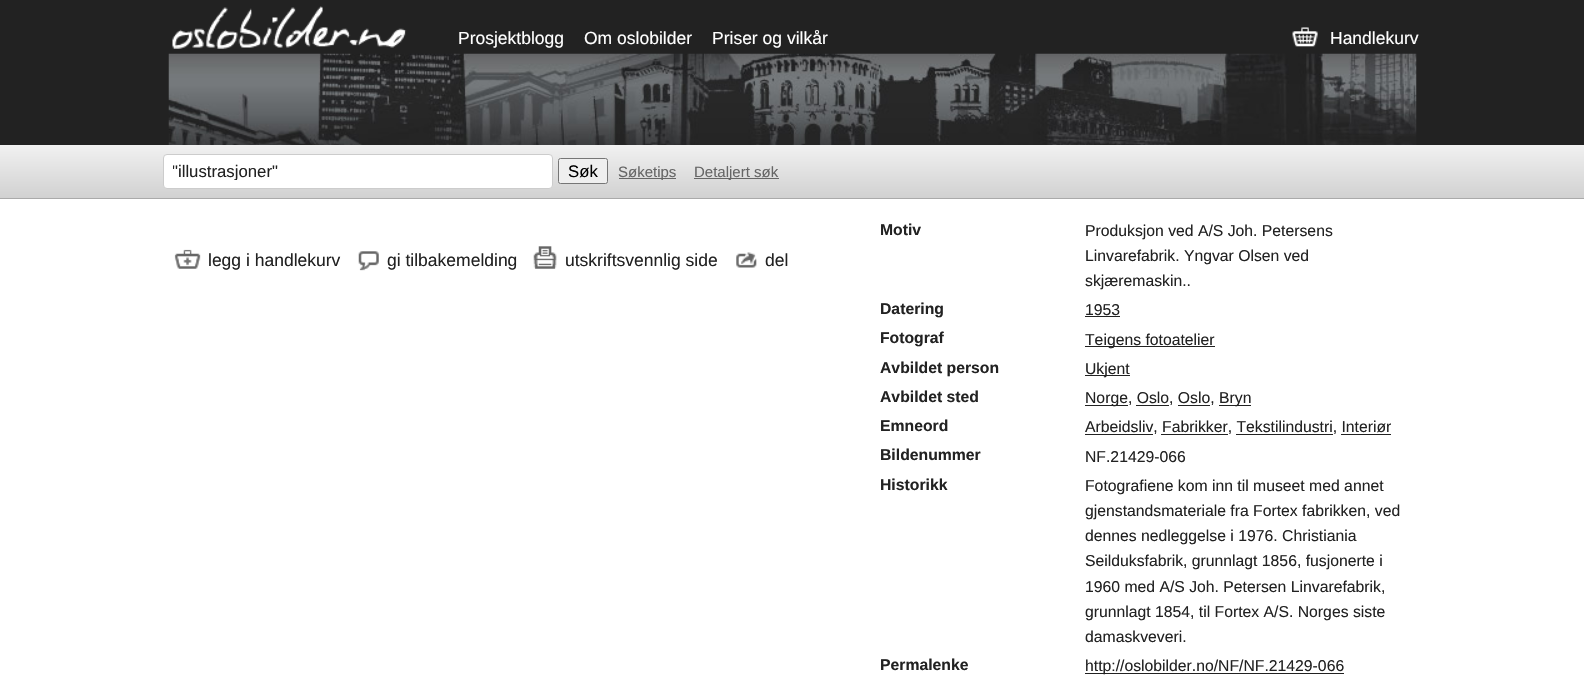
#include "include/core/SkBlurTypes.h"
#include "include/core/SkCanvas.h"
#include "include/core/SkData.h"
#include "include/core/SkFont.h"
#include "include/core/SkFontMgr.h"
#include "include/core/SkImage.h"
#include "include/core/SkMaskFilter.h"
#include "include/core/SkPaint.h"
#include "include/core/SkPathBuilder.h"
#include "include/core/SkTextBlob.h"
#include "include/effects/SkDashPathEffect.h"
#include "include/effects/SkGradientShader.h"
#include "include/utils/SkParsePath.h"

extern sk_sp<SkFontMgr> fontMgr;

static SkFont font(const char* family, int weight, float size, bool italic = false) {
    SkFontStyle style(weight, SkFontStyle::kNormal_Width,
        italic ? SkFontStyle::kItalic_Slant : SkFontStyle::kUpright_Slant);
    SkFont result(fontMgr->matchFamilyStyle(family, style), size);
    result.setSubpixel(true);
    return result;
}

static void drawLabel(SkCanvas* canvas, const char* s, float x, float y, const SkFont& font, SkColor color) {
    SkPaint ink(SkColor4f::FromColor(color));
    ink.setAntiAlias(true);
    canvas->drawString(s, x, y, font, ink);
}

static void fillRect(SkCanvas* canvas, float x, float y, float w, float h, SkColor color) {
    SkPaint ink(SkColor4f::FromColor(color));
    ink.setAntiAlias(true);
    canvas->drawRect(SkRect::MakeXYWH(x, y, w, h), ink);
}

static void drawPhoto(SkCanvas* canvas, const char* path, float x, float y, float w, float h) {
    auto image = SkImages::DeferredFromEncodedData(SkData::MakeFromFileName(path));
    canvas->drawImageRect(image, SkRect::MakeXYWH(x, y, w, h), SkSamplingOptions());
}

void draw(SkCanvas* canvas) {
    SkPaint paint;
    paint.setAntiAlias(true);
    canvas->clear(0xFFFFFFFF);
    fillRect(canvas, 0, 0, 1584, 145, 0xFF222222);
    drawPhoto(canvas, "assets/img1.png", 168, 53, 1249, 92);
    drawPhoto(canvas, "assets/img2.png", 172, 6, 235, 43);
    SkFont font1 = font("Liberation Sans", 400, 17.5f);
    drawLabel(canvas, "Prosjektblogg", 458, 44, font1, 0xFFFFFFFF);
    drawLabel(canvas, "Om oslobilder", 584, 44, font1, 0xFFFFFFFF);
    drawLabel(canvas, "Priser og vilkår", 712, 44, font1, 0xFFFFFFFF);
    drawPhoto(canvas, "assets/img3.png", 1292, 27, 26, 20);
    drawLabel(canvas, "Handlekurv", 1330, 44, font1, 0xFFFFFFFF);
    {
        const SkColor colors[] = {0xFFF1F1F1, 0xFFD1D1D1};
        const float stops[] = {0, 1};
        const SkPoint ends[] = {{793, 145}, {793, 198}};
        paint.setShader(SkGradientShader::MakeLinear(ends, colors, stops, 2, SkTileMode::kClamp));
        paint.setAlpha(255);
    }
    canvas->drawRect(SkRect::MakeXYWH(0, 145, 1584, 53), paint);
    fillRect(canvas, 0, 198, 1584, 1, 0xFFAAAAAA);
    paint.setShader(nullptr);
    paint.setColor(0xFFFFFFFF);
    canvas->drawRoundRect(SkRect::MakeXYWH(163.5f, 154.5f, 389, 34), 3.5f, 3.5f, paint);
    paint.setStroke(true);
    paint.setStrokeWidth(1);
    paint.setColor(0xFFCCCCCC);
    canvas->drawRoundRect(SkRect::MakeXYWH(163.5f, 154.5f, 389, 34), 3.5f, 3.5f, paint);
    canvas->save();
    canvas->clipRect(SkRect::MakeXYWH(173, 161, 371, 19));
    SkFont font2 = font("Liberation Sans", 400, 16.75f);
    drawLabel(canvas, "\"illustrasjoner\"", 172, 177, font2, 0xFF222222);
    canvas->restore();
    paint.setStroke(false);
    paint.setColor(0xFFEFEFEF);
    canvas->drawRoundRect(SkRect::MakeXYWH(558.5f, 158.5f, 49, 25), 2, 2, paint);
    paint.setStroke(true);
    paint.setColor(0xFF767676);
    canvas->drawRoundRect(SkRect::MakeXYWH(558.5f, 158.5f, 49, 25), 2, 2, paint);
    drawLabel(canvas, "Søk", 568, 177, font2, 0xFF000000);
    fillRect(canvas, 619, 178, 57, 1, 0xFF666666);
    SkFont font3 = font("Liberation Sans", 400, 15);
    drawLabel(canvas, "Søketips", 618, 177, font3, 0xFF666666);
    fillRect(canvas, 694, 178, 85, 1, 0xFF666666);
    drawLabel(canvas, "Detaljert søk", 694, 177, font3, 0xFF666666);
    drawPhoto(canvas, "assets/img4.png", 174, 249, 27, 20);
    drawLabel(canvas, "legg i handlekurv", 208, 266, font1, 0xFF222222);
    drawPhoto(canvas, "assets/img5.png", 358, 251, 21, 20);
    drawLabel(canvas, "gi tilbakemelding", 387, 266, font1, 0xFF222222);
    drawPhoto(canvas, "assets/img6.png", 533, 246, 24, 23);
    drawLabel(canvas, "utskriftsvennlig side", 565, 266, font1, 0xFF222222);
    drawPhoto(canvas, "assets/img7.png", 736, 252, 21, 16);
    drawLabel(canvas, "del", 765, 266, font1, 0xFF222222);
    SkFont font4 = font("Liberation Sans", 700, 15.75f);
    drawLabel(canvas, "Motiv", 880, 235, font4, 0xFF222222);
    SkFont font5 = font("Liberation Sans", 400, 15.75f);
    drawLabel(canvas, "Produksjon ved A/S Joh. Petersens", 1085, 236, font5, 0xFF222222);
    drawLabel(canvas, "Linvarefabrik. Yngvar Olsen ved", 1085, 261, font5, 0xFF222222);
    drawLabel(canvas, "skjæremaskin..", 1085, 286, font5, 0xFF222222);
    drawLabel(canvas, "Datering", 880, 314, font4, 0xFF222222);
    drawLabel(canvas, "1953", 1085, 315, font5, 0xFF222222);
    fillRect(canvas, 1085, 316, 35, 1, 0xFF222222);
    drawLabel(canvas, "Fotograf", 880, 343, font4, 0xFF222222);
    fillRect(canvas, 1085, 346, 130, 1, 0xFF222222);
    drawLabel(canvas, "Teigens fotoatelier", 1085, 345, font5, 0xFF222222);
    drawLabel(canvas, "Avbildet person", 880, 373, font4, 0xFF222222);
    fillRect(canvas, 1085, 375, 45, 1, 0xFF222222);
    drawLabel(canvas, "Ukjent", 1085, 374, font5, 0xFF222222);
    drawLabel(canvas, "Avbildet sted", 880, 402, font4, 0xFF222222);
    fillRect(canvas, 1085, 405, 43, 1, 0xFF222222);
    drawLabel(canvas, "Norge, Oslo, Oslo,", 1085, 403, font5, 0xFF222222);
    fillRect(canvas, 1219, 405, 32, 1, 0xFF222222);
    drawLabel(canvas, "Bryn", 1219, 403, font5, 0xFF222222);
    fillRect(canvas, 1136, 405, 33, 1, 0xFF222222);
    fillRect(canvas, 1178, 405, 32, 1, 0xFF222222);
    drawLabel(canvas, "Emneord", 880, 431, font4, 0xFF222222);
    drawLabel(canvas, "Arbeidsliv, Fabrikker, Tekstilindustri, Interiør", 1085, 432, font5, 0xFF222222);
    fillRect(canvas, 1085, 434, 68, 1, 0xFF222222);
    fillRect(canvas, 1161, 434, 67, 1, 0xFF222222);
    fillRect(canvas, 1236, 434, 97, 1, 0xFF222222);
    fillRect(canvas, 1341, 434, 50, 1, 0xFF222222);
    drawLabel(canvas, "Bildenummer", 880, 460, font4, 0xFF222222);
    drawLabel(canvas, "NF.21429-066", 1085, 462, font5, 0xFF222222);
    drawLabel(canvas, "Historikk", 880, 490, font4, 0xFF222222);
    drawLabel(canvas, "Fotografiene kom inn til museet med annet", 1085, 491, font5, 0xFF222222);
    drawLabel(canvas, "gjenstandsmateriale fra Fortex fabrikken, ved", 1085, 516, font5, 0xFF222222);
    drawLabel(canvas, "dennes nedleggelse i 1976. Christiania", 1085, 541, font5, 0xFF222222);
    drawLabel(canvas, "Seilduksfabrik, grunnlagt 1856, fusjonerte i", 1085, 566, font5, 0xFF222222);
    drawLabel(canvas, "1960 med A/S Joh. Petersen Linvarefabrik,", 1085, 592, font5, 0xFF222222);
    drawLabel(canvas, "grunnlagt 1854, til Fortex A/S. Norges siste", 1085, 617, font5, 0xFF222222);
    drawLabel(canvas, "damaskveveri.", 1085, 642, font5, 0xFF222222);
    drawLabel(canvas, "Permalenke", 880, 670, font4, 0xFF222222);
    fillRect(canvas, 1085, 673, 259, 1, 0xFF222222);
    drawLabel(canvas, "http://oslobilder.no/NF/NF.21429-066", 1085, 671, font5, 0xFF222222);
}
